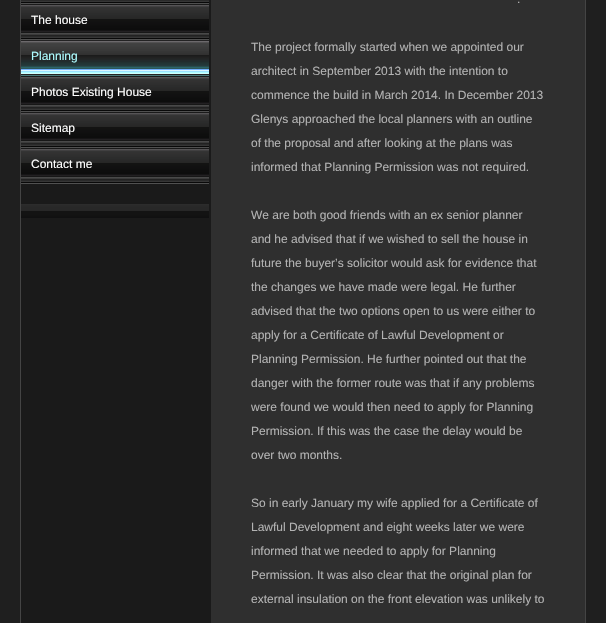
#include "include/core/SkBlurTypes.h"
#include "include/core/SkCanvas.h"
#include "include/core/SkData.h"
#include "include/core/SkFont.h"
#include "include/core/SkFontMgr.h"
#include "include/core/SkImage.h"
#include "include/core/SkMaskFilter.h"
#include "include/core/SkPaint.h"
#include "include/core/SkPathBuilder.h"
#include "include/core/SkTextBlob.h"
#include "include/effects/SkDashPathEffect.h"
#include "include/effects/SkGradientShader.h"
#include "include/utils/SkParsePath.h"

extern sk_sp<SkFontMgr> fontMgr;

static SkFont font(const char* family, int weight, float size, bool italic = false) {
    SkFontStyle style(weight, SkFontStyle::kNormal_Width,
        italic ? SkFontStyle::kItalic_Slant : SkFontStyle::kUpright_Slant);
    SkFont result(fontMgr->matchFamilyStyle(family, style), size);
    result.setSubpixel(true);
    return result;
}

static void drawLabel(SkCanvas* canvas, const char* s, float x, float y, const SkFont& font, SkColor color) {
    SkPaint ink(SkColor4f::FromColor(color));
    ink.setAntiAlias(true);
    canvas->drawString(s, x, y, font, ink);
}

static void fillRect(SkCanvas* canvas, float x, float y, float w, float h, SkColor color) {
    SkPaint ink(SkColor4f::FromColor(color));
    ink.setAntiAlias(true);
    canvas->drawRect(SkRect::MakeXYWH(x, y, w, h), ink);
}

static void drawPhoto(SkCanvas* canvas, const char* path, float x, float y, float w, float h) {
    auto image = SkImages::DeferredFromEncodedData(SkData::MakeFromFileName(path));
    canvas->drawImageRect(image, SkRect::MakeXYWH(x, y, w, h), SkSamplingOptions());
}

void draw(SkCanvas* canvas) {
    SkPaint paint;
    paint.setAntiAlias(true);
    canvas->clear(0xFF1F1F1F);
    fillRect(canvas, 211, 0, 374, 623, 0xFF2F2F2F);
    fillRect(canvas, 21, 0, 190, 623, 0xFF1A1A1A);
    fillRect(canvas, 585, 0, 1, 623, 0xFF444444);
    fillRect(canvas, 20, 0, 1, 623, 0xFF444444);
    drawPhoto(canvas, "assets/img1.png", 21, 0, 188, 4);
    drawPhoto(canvas, "assets/img2.png", 21, 5, 188, 35);
    SkFont font1 = font("Liberation Sans", 400, 12);
    drawLabel(canvas, "The house", 31, 24, font1, 0xFFFFFFFF);
    drawPhoto(canvas, "assets/img3.png", 21, 40, 188, 36);
    drawLabel(canvas, "Planning", 31, 60, font1, 0xFFADFCFF);
    drawPhoto(canvas, "assets/img2.png", 21, 77, 188, 35);
    drawLabel(canvas, "Photos Existing House", 31, 96, font1, 0xFFFFFFFF);
    drawPhoto(canvas, "assets/img2.png", 21, 113, 188, 35);
    drawLabel(canvas, "Sitemap", 31, 132, font1, 0xFFFFFFFF);
    drawPhoto(canvas, "assets/img2.png", 21, 149, 188, 35);
    drawLabel(canvas, "Contact me", 31, 168, font1, 0xFFFFFFFF);
    drawPhoto(canvas, "assets/img4.png", 21, 204, 188, 14);
    drawLabel(canvas, ".", 517, 3, font1, 0xFFB3B3B3);
    drawLabel(canvas, "The project formally started when we appointed our", 251, 51, font1, 0xFFB3B3B3);
    drawLabel(canvas, "architect in September 2013 with the intention to", 251, 75, font1, 0xFFB3B3B3);
    drawLabel(canvas, "commence the build in March 2014. In December 2013", 251, 99, font1, 0xFFB3B3B3);
    drawLabel(canvas, "Glenys approached the local planners with an outline", 251, 123, font1, 0xFFB3B3B3);
    drawLabel(canvas, "of the proposal and after looking at the plans was", 251, 147, font1, 0xFFB3B3B3);
    drawLabel(canvas, "informed that Planning Permission was not required.", 251, 171, font1, 0xFFB3B3B3);
    drawLabel(canvas, "We are both good friends with an ex senior planner", 251, 219, font1, 0xFFB3B3B3);
    drawLabel(canvas, "and he advised that if we wished to sell the house in", 251, 243, font1, 0xFFB3B3B3);
    drawLabel(canvas, "future the buyer’s solicitor would ask for evidence that", 251, 267, font1, 0xFFB3B3B3);
    drawLabel(canvas, "the changes we have made were legal. He further", 251, 291, font1, 0xFFB3B3B3);
    drawLabel(canvas, "advised that the two options open to us were either to", 251, 315, font1, 0xFFB3B3B3);
    drawLabel(canvas, "apply for a Certificate of Lawful Development or", 251, 339, font1, 0xFFB3B3B3);
    drawLabel(canvas, "Planning Permission. He further pointed out that the", 251, 363, font1, 0xFFB3B3B3);
    drawLabel(canvas, "danger with the former route was that if any problems", 251, 387, font1, 0xFFB3B3B3);
    drawLabel(canvas, "were found we would then need to apply for Planning", 251, 411, font1, 0xFFB3B3B3);
    drawLabel(canvas, "Permission. If this was the case the delay would be", 251, 435, font1, 0xFFB3B3B3);
    drawLabel(canvas, "over two months.", 251, 459, font1, 0xFFB3B3B3);
    drawLabel(canvas, "So in early January my wife applied for a Certificate of", 251, 507, font1, 0xFFB3B3B3);
    drawLabel(canvas, "Lawful Development and eight weeks later we were", 251, 531, font1, 0xFFB3B3B3);
    drawLabel(canvas, "informed that we needed to apply for Planning", 251, 555, font1, 0xFFB3B3B3);
    drawLabel(canvas, "Permission. It was also clear that the original plan for", 251, 579, font1, 0xFFB3B3B3);
    drawLabel(canvas, "external insulation on the front elevation was unlikely to", 251, 603, font1, 0xFFB3B3B3);
}
